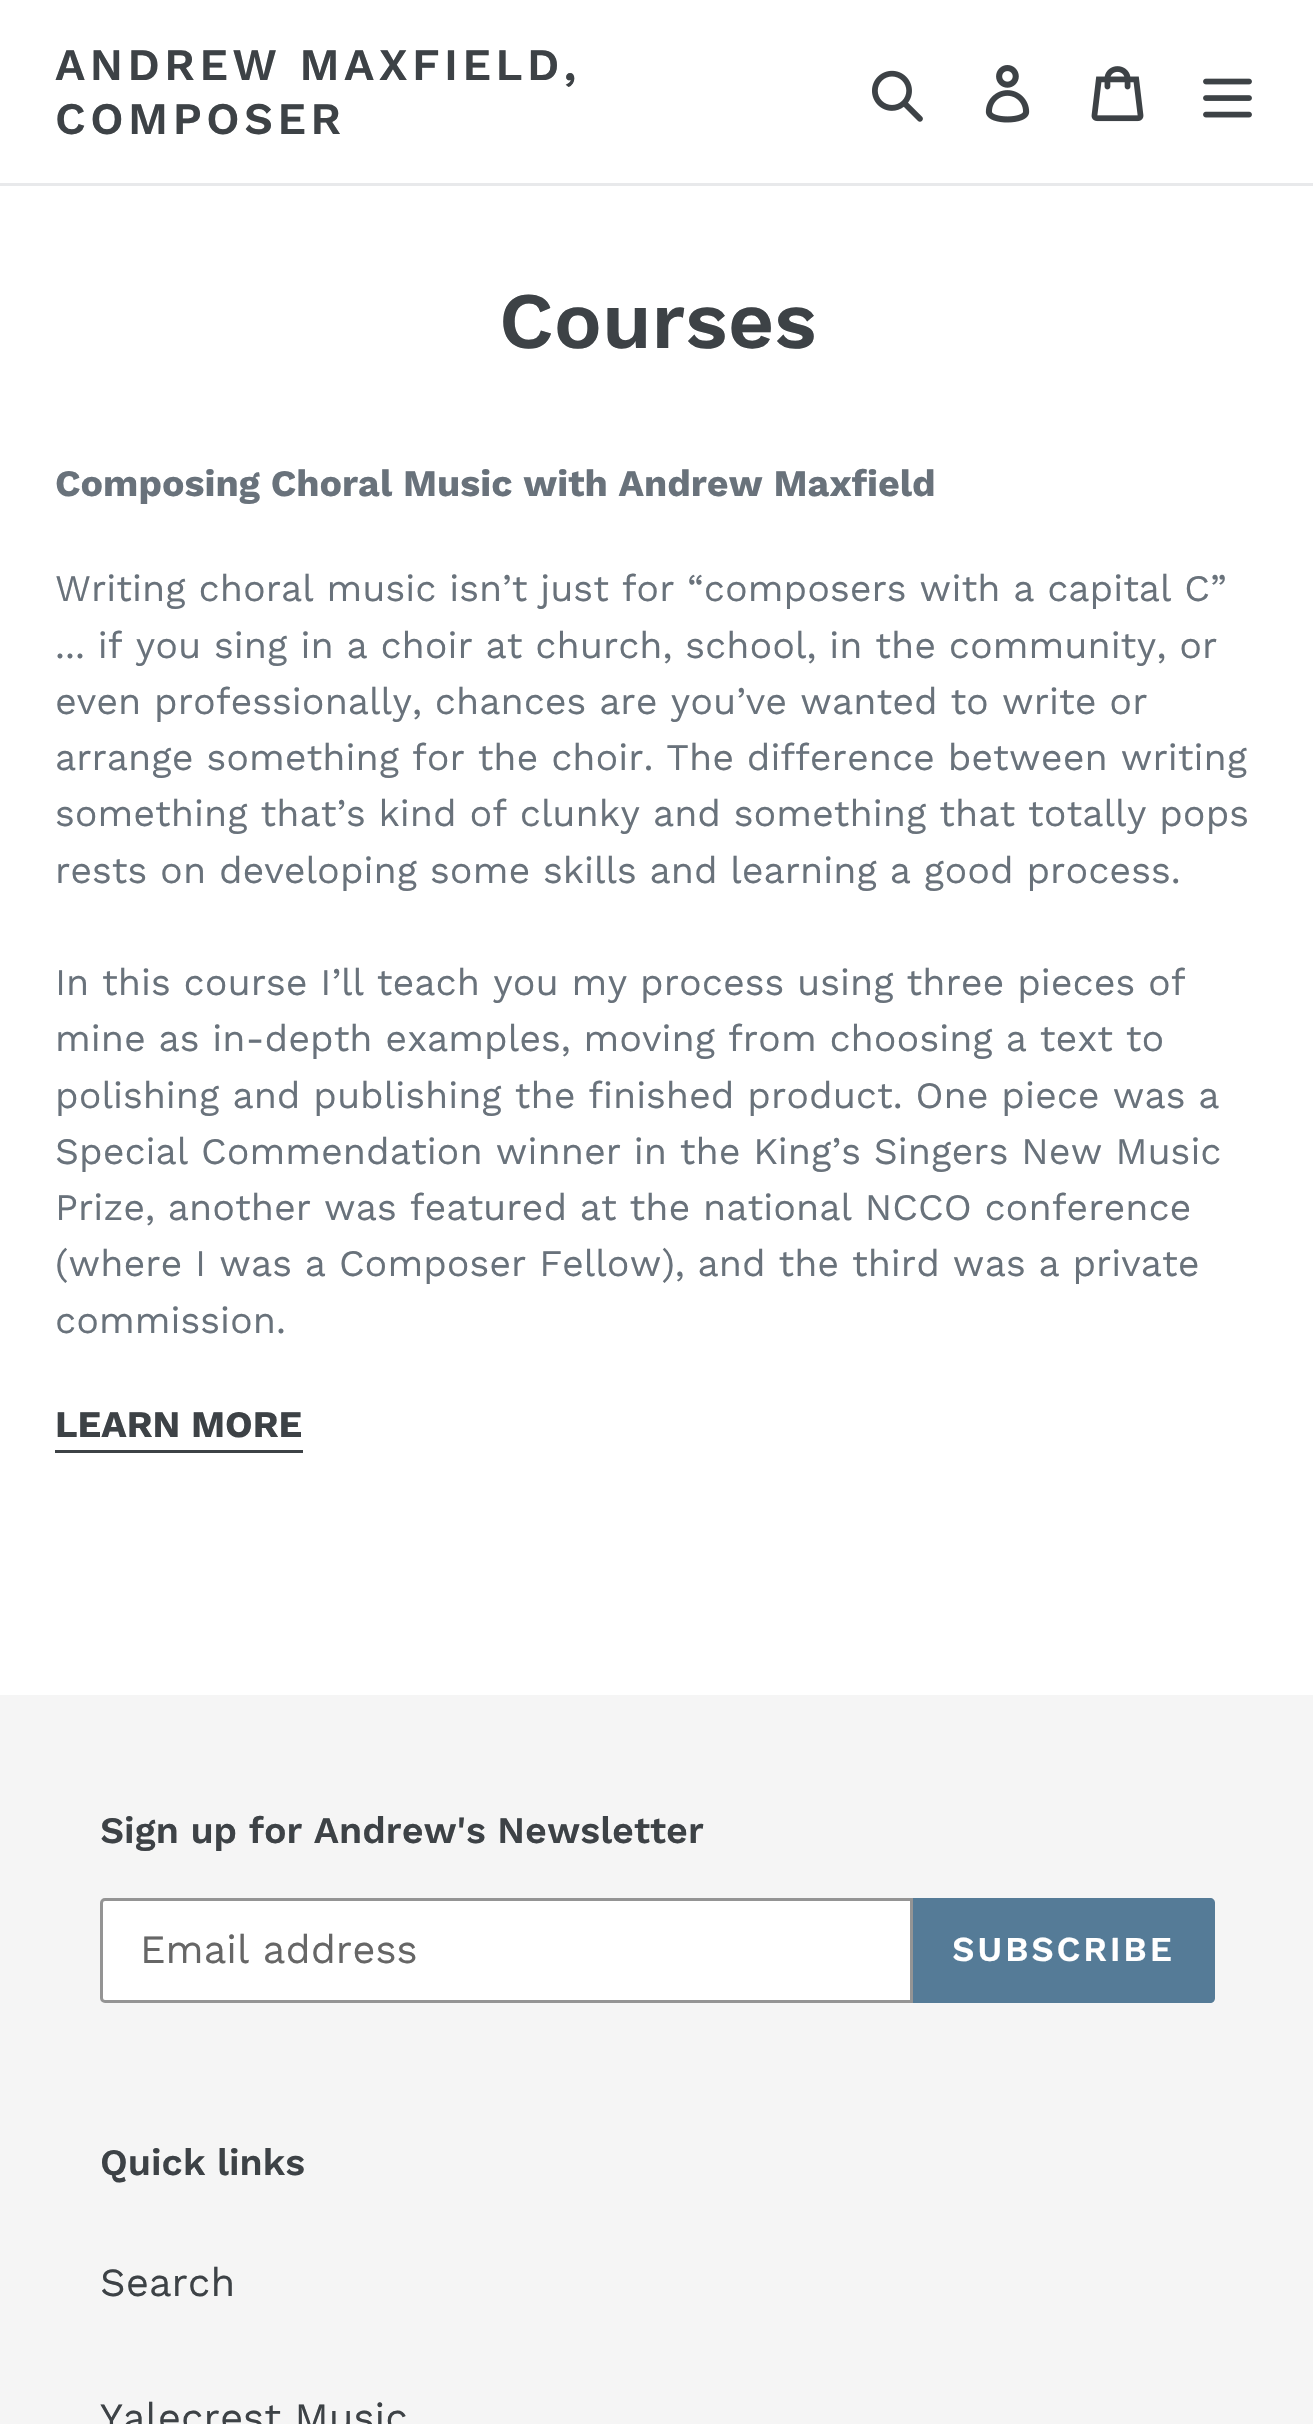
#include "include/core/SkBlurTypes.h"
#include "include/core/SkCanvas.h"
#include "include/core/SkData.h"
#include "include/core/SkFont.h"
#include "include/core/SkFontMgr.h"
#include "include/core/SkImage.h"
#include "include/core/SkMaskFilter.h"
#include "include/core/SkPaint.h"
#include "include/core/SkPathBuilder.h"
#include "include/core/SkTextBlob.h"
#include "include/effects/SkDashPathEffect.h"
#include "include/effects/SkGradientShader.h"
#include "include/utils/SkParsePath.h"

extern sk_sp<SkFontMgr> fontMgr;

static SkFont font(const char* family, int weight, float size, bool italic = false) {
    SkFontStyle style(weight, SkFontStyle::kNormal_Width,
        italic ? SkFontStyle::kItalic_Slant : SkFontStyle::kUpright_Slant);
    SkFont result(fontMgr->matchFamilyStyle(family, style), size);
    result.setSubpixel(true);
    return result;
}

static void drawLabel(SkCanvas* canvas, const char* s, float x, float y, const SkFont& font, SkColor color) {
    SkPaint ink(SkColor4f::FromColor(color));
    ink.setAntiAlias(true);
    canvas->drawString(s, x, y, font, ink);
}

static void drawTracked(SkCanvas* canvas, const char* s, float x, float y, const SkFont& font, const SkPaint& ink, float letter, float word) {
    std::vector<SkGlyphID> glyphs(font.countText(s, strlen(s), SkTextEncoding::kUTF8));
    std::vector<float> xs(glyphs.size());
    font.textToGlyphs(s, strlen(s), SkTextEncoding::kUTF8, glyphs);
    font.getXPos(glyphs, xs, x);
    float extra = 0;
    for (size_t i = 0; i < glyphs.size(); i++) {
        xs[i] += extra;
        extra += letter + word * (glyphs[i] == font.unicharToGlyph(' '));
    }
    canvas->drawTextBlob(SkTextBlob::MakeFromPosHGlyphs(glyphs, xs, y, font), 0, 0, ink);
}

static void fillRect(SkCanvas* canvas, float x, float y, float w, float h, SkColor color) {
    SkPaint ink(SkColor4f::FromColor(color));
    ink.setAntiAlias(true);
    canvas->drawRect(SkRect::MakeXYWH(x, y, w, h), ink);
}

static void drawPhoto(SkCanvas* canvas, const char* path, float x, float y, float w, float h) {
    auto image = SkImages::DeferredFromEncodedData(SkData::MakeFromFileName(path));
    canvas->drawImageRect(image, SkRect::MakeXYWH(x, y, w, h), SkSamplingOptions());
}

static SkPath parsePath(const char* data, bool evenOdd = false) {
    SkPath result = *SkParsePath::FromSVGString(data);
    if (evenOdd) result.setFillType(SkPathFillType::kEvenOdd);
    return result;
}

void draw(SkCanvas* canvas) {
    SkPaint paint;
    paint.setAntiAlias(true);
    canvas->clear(0xFFFFFFFF);
    fillRect(canvas, 0, 183, 1313, 3, 0xFFE8E9EB);
    SkFont font1 = font("Work Sans", 600, 45);
    paint.setColor(0xFF3D4246);
    drawTracked(canvas, "ANDREW MAXFIELD,", 55, 80, font1, paint, 4.5f, 0);
    drawTracked(canvas, "COMPOSER", 55, 134, font1, paint, 4.5f, 0);
    drawPhoto(canvas, "assets/img1.png", 872, 70, 51, 52);
    drawPhoto(canvas, "assets/img2.png", 985, 65, 45, 58);
    drawPhoto(canvas, "assets/img3.png", 1091, 66, 53, 56);
    drawPhoto(canvas, "assets/img4.png", 1203, 78, 49, 40);
    SkFont font2 = font("Work Sans", 600, 80);
    drawLabel(canvas, "Courses", 499, 348, font2, 0xFF3D4246);
    SkFont font3 = font("Work Sans", 700, 37.5f);
    drawLabel(canvas, "Composing Choral Music with Andrew Maxfield", 55, 496, font3, 0xFF69727B);
    SkFont font4 = font("Work Sans", 400, 37.5f);
    drawLabel(canvas, "Writing choral music isn’t just for “composers with a capital C”", 55, 601, font4, 0xFF69727B);
    drawLabel(canvas, "... if you sing in a choir at church, school, in the community, or", 55, 658, font4, 0xFF69727B);
    drawLabel(canvas, "even professionally, chances are you’ve wanted to write or", 55, 714, font4, 0xFF69727B);
    drawLabel(canvas, "arrange something for the choir. The difference between writing", 55, 770, font4, 0xFF69727B);
    drawLabel(canvas, "something that’s kind of clunky and something that totally pops", 55, 826, font4, 0xFF69727B);
    drawLabel(canvas, "rests on developing some skills and learning a good process.", 55, 883, font4, 0xFF69727B);
    drawLabel(canvas, "In this course I’ll teach you my process using three pieces of", 55, 995, font4, 0xFF69727B);
    drawLabel(canvas, "mine as in-depth examples, moving from choosing a text to", 55, 1051, font4, 0xFF69727B);
    drawLabel(canvas, "polishing and publishing the finished product. One piece was a", 55, 1108, font4, 0xFF69727B);
    drawLabel(canvas, "Special Commendation winner in the King’s Singers New Music", 55, 1164, font4, 0xFF69727B);
    drawLabel(canvas, "Prize, another was featured at the national NCCO conference", 55, 1220, font4, 0xFF69727B);
    drawLabel(canvas, "(where I was a Composer Fellow), and the third was a private", 55, 1276, font4, 0xFF69727B);
    drawLabel(canvas, "commission.", 55, 1333, font4, 0xFF69727B);
    drawLabel(canvas, "LEARN MORE", 55, 1437, font3, 0xFF3D4246);
    fillRect(canvas, 55, 1450, 248, 3, 0xFF3D4246);
    fillRect(canvas, 0, 1695, 1313, 729, 0xFFF5F5F5);
    SkFont font5 = font("Work Sans", 600, 37.5f);
    drawLabel(canvas, "Sign up for Andrew's Newsletter", 100, 1843, font5, 0xFF3D4246);
    paint.setColor(0xFFFFFFFF);
    canvas->drawPath(parsePath("M105 1899.5H911.5V2001.5H105C103 2001.5 101.5 2000 101.5 1998V1903C101.5 1901 103 1899.5 105 1899.5Z"), paint);
    paint.setStroke(true);
    paint.setStrokeWidth(3);
    paint.setColor(0xFF949494);
    canvas->drawPath(parsePath("M105 1899.5H911.5V2001.5H105C103 2001.5 101.5 2000 101.5 1998V1903C101.5 1901 103 1899.5 105 1899.5Z"), paint);
    SkFont font6 = font("Work Sans", 400, 40);
    drawLabel(canvas, "Email address", 140, 1963, font6, 0xFF666666);
    paint.setStroke(false);
    paint.setColor(0xFF557B97);
    canvas->drawPath(parsePath("M913 1898H1210C1213 1898 1215 1900 1215 1903V1998C1215 2001 1213 2003 1210 2003H913Z"), paint);
    SkFont font7 = font("Work Sans", 600, 35);
    paint.setColor(0xFFFFFFFF);
    drawTracked(canvas, "SUBSCRIBE", 952, 1961, font7, paint, 2.75f, 0);
    drawLabel(canvas, "Quick links", 100, 2175, font5, 0xFF3D4246);
    drawLabel(canvas, "Search", 100, 2296, font6, 0xFF3D4246);
    drawLabel(canvas, "Yalecrest Music", 100, 2431, font6, 0xFF3D4246);
}
